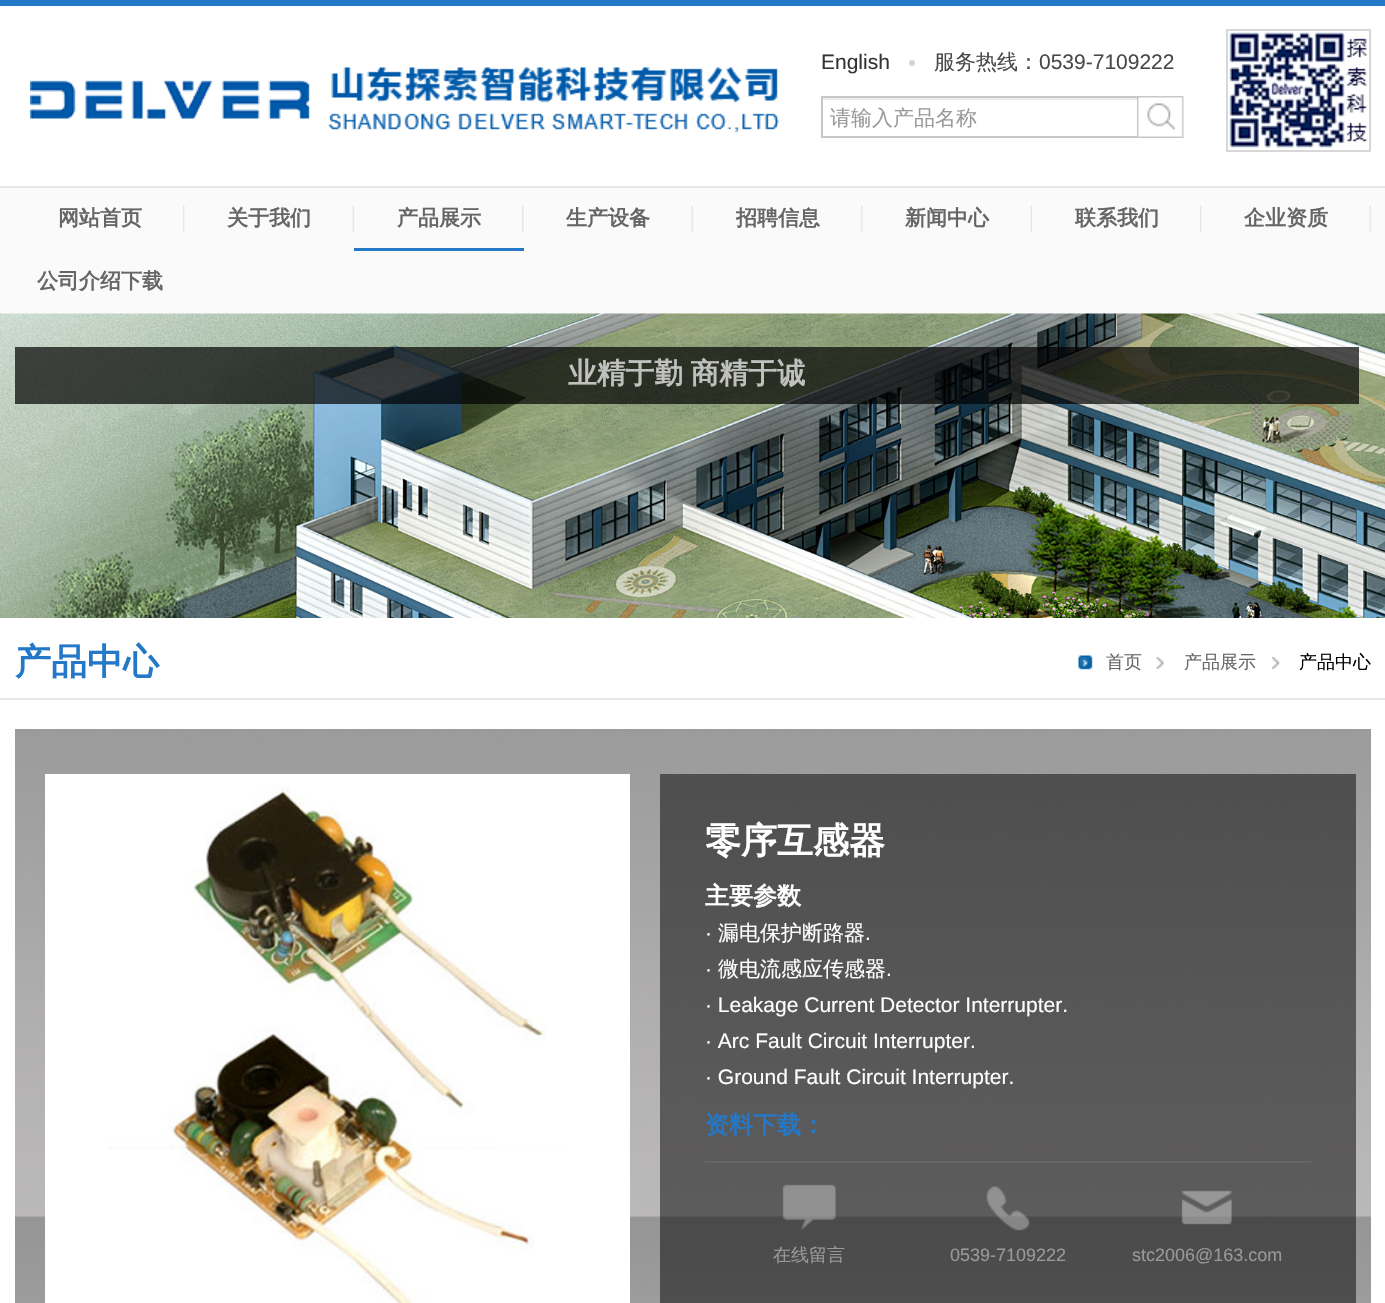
#include "include/core/SkBlurTypes.h"
#include "include/core/SkCanvas.h"
#include "include/core/SkData.h"
#include "include/core/SkFont.h"
#include "include/core/SkFontMgr.h"
#include "include/core/SkImage.h"
#include "include/core/SkMaskFilter.h"
#include "include/core/SkPaint.h"
#include "include/core/SkPathBuilder.h"
#include "include/core/SkTextBlob.h"
#include "include/effects/SkDashPathEffect.h"
#include "include/effects/SkGradientShader.h"
#include "include/utils/SkParsePath.h"

extern sk_sp<SkFontMgr> fontMgr;

static SkFont font(const char* family, int weight, float size, bool italic = false) {
    SkFontStyle style(weight, SkFontStyle::kNormal_Width,
        italic ? SkFontStyle::kItalic_Slant : SkFontStyle::kUpright_Slant);
    SkFont result(fontMgr->matchFamilyStyle(family, style), size);
    result.setSubpixel(true);
    return result;
}

static void drawLabel(SkCanvas* canvas, const char* s, float x, float y, const SkFont& font, SkColor color) {
    SkPaint ink(SkColor4f::FromColor(color));
    ink.setAntiAlias(true);
    canvas->drawString(s, x, y, font, ink);
}

static void drawTracked(SkCanvas* canvas, const char* s, float x, float y, const SkFont& font, const SkPaint& ink, float letter, float word) {
    std::vector<SkGlyphID> glyphs(font.countText(s, strlen(s), SkTextEncoding::kUTF8));
    std::vector<float> xs(glyphs.size());
    font.textToGlyphs(s, strlen(s), SkTextEncoding::kUTF8, glyphs);
    font.getXPos(glyphs, xs, x);
    float extra = 0;
    for (size_t i = 0; i < glyphs.size(); i++) {
        xs[i] += extra;
        extra += letter + word * (glyphs[i] == font.unicharToGlyph(' '));
    }
    canvas->drawTextBlob(SkTextBlob::MakeFromPosHGlyphs(glyphs, xs, y, font), 0, 0, ink);
}

static void fillRect(SkCanvas* canvas, float x, float y, float w, float h, SkColor color) {
    SkPaint ink(SkColor4f::FromColor(color));
    ink.setAntiAlias(true);
    canvas->drawRect(SkRect::MakeXYWH(x, y, w, h), ink);
}

static void drawPhoto(SkCanvas* canvas, const char* path, float x, float y, float w, float h) {
    auto image = SkImages::DeferredFromEncodedData(SkData::MakeFromFileName(path));
    canvas->drawImageRect(image, SkRect::MakeXYWH(x, y, w, h), SkSamplingOptions());
}

void draw(SkCanvas* canvas) {
    SkPaint paint;
    paint.setAntiAlias(true);
    canvas->clear(0xFFFFFFFF);
    fillRect(canvas, 0, 0, 1385, 6, 0xFF2378C8);
    drawPhoto(canvas, "assets/img1.png", 30, 67, 749, 66);
    SkFont font1 = font("Liberation Sans", 400, 21);
    drawLabel(canvas, "English", 821, 69, font1, 0xFF333333);
    drawPhoto(canvas, "assets/img2.png", 909, 60, 6, 6);
    SkFont font2 = font("WenQuanYi Zen Hei", 500, 21);
    drawLabel(canvas, "服务热线：", 934, 69, font2, 0xFF494949);
    drawLabel(canvas, "0539-7109222", 1039, 69, font1, 0xFF494949);
    fillRect(canvas, 822, 98, 315, 2, 0xFFECECEC);
    paint.setStroke(true);
    paint.setStrokeWidth(2);
    paint.setColor(0xFFC8C8C8);
    canvas->drawRect(SkRect::MakeXYWH(822, 97, 316, 40), paint);
    drawLabel(canvas, "请输入产品名称", 830, 125, font2, 0xFF999999);
    drawPhoto(canvas, "assets/img3.png", 1138, 96, 46, 42);
    drawPhoto(canvas, "assets/img4.png", 1229, 32, 138, 116);
    paint.setColor(0xFFD7D7D7);
    canvas->drawRect(SkRect::MakeXYWH(1227, 30, 143, 121), paint);
    fillRect(canvas, 0, 188, 1385, 126, 0xFFFAFAFA);
    fillRect(canvas, 0, 186, 1385, 2, 0xFFE7E7E7);
    drawPhoto(canvas, "assets/img5.png", 183, 205, 2, 28);
    SkFont font3 = font("WenQuanYi Zen Hei", 700, 21);
    drawLabel(canvas, "网站首页", 58, 225, font3, 0xFF666666);
    drawPhoto(canvas, "assets/img6.png", 352, 205, 2, 28);
    drawLabel(canvas, "关于我们", 227, 225, font3, 0xFF666666);
    drawPhoto(canvas, "assets/img5.png", 522, 205, 2, 28);
    fillRect(canvas, 354, 248, 170, 3, 0xFF2378C8);
    drawLabel(canvas, "产品展示", 397, 225, font3, 0xFF666666);
    drawPhoto(canvas, "assets/img6.png", 691, 205, 2, 28);
    drawLabel(canvas, "生产设备", 566, 225, font3, 0xFF666666);
    drawPhoto(canvas, "assets/img5.png", 861, 205, 2, 28);
    drawLabel(canvas, "招聘信息", 736, 225, font3, 0xFF666666);
    drawPhoto(canvas, "assets/img6.png", 1030, 205, 2, 28);
    drawLabel(canvas, "新闻中心", 905, 225, font3, 0xFF666666);
    drawPhoto(canvas, "assets/img5.png", 1200, 205, 2, 28);
    drawLabel(canvas, "联系我们", 1075, 225, font3, 0xFF666666);
    drawPhoto(canvas, "assets/img6.png", 1369, 205, 2, 28);
    drawLabel(canvas, "企业资质", 1244, 225, font3, 0xFF666666);
    drawLabel(canvas, "公司介绍下载", 37, 288, font3, 0xFF666666);
    drawPhoto(canvas, "assets/img7.png", 0, 313, 1385, 305);
    fillRect(canvas, 15, 347, 1344, 57, 0xB3000000);
    SkFont font4 = font("WenQuanYi Zen Hei", 700, 28.75f);
    paint.setStroke(false);
    paint.setColor(0xFFC0C1BE);
    drawTracked(canvas, "业精于勤 商精于诚", 568, 383, font4, paint, 0, -1);
    fillRect(canvas, 0, 698, 1385, 2, 0xFFE7E7E7);
    SkFont font5 = font("WenQuanYi Zen Hei", 700, 36);
    drawLabel(canvas, "产品中心", 15, 674, font5, 0xFF2378C8);
    drawPhoto(canvas, "assets/img8.png", 1078, 655, 15, 15);
    SkFont font6 = font("WenQuanYi Zen Hei", 500, 18);
    drawLabel(canvas, "首页", 1106, 668, font6, 0xFF666666);
    drawPhoto(canvas, "assets/img9.png", 1156, 657, 8, 12);
    drawLabel(canvas, "产品展示", 1184, 668, font6, 0xFF666666);
    drawPhoto(canvas, "assets/img10.png", 1272, 657, 8, 12);
    drawLabel(canvas, "产品中心", 1299, 668, font6, 0xFF000000);
    drawPhoto(canvas, "assets/img11.png", 15, 729, 1356, 574);
    drawPhoto(canvas, "assets/img12.png", 45, 774, 585, 529);
    fillRect(canvas, 660, 774, 696, 529, 0x80000000);
    drawLabel(canvas, "零序互感器", 705, 853, font5, 0xFFFFFFFF);
    SkFont font7 = font("WenQuanYi Zen Hei", 700, 24);
    drawLabel(canvas, "主要参数", 705, 904, font7, 0xFFFFFFFF);
    drawLabel(canvas, "·", 705, 940, font1, 0xFFFFFFFF);
    drawLabel(canvas, "漏电保护断路器", 718, 940, font2, 0xFFFFFFFF);
    drawLabel(canvas, ".", 865, 940, font1, 0xFFFFFFFF);
    drawLabel(canvas, "·", 705, 976, font1, 0xFFFFFFFF);
    drawLabel(canvas, "微电流感应传感器", 718, 976, font2, 0xFFFFFFFF);
    drawLabel(canvas, ".", 886, 976, font1, 0xFFFFFFFF);
    drawLabel(canvas, "· Leakage Current Detector Interrupter.", 705, 1012, font1, 0xFFFFFFFF);
    drawLabel(canvas, "· Arc Fault Circuit Interrupter.", 705, 1048, font1, 0xFFFFFFFF);
    drawLabel(canvas, "· Ground Fault Circuit Interrupter.", 705, 1084, font1, 0xFFFFFFFF);
    drawLabel(canvas, "资料下载：", 705, 1133, font7, 0xFF2378C8);
    fillRect(canvas, 705, 1161, 606, 2, 0xFF666666);
    drawPhoto(canvas, "assets/img13.png", 782, 1184, 54, 46);
    drawLabel(canvas, "在线留言", 773, 1261, font6, 0xFF999999);
    drawPhoto(canvas, "assets/img14.png", 986, 1186, 44, 45);
    SkFont font8 = font("Liberation Sans", 400, 18);
    drawLabel(canvas, "0539-7109222", 950, 1261, font8, 0xFF999999);
    drawPhoto(canvas, "assets/img15.png", 1181, 1190, 51, 35);
    drawLabel(canvas, "stc2006@163.com", 1132, 1261, font8, 0xFF999999);
}
